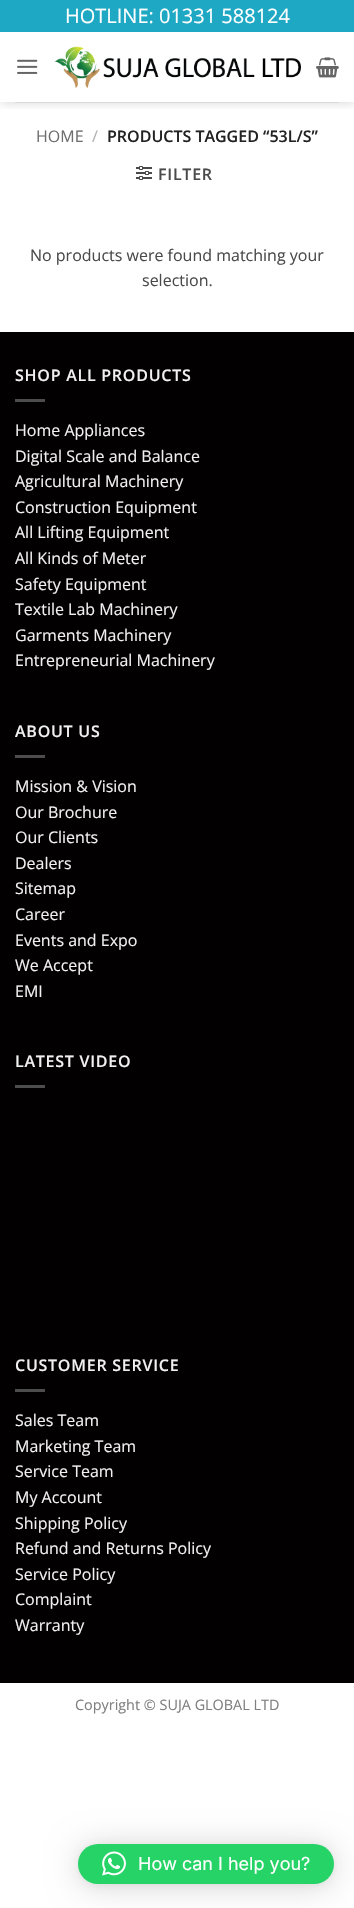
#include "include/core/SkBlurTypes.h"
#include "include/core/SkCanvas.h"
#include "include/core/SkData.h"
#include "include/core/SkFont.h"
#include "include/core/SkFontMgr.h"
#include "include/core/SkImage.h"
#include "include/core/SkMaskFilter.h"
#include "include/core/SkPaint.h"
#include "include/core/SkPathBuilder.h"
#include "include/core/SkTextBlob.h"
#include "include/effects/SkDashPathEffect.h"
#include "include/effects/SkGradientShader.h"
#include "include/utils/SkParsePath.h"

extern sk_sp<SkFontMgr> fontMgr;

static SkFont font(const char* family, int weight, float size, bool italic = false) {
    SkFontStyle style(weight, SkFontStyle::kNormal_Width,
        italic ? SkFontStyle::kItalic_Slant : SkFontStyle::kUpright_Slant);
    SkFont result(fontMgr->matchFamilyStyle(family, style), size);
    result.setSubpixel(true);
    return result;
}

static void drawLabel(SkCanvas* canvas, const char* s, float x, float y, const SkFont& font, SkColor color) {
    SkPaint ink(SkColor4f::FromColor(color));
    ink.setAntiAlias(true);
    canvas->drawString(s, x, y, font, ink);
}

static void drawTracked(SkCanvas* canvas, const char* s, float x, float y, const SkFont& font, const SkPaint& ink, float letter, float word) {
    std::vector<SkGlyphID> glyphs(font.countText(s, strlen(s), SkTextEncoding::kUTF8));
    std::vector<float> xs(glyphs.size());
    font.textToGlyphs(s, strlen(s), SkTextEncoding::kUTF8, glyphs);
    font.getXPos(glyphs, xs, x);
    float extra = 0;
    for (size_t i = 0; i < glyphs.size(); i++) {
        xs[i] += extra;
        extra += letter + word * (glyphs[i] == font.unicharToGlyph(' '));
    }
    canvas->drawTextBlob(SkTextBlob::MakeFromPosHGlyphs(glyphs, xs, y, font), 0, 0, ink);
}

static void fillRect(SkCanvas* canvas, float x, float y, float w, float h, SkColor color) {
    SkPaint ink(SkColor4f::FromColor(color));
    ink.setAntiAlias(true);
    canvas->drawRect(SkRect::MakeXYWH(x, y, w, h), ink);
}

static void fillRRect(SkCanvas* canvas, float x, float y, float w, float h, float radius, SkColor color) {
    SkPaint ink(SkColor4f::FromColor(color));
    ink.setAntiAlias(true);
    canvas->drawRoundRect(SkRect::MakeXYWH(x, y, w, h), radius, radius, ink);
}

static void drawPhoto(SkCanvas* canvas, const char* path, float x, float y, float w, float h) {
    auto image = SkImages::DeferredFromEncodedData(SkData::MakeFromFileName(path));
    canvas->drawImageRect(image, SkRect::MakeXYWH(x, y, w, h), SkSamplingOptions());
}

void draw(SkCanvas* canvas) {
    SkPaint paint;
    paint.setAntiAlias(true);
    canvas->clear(0xFFFFFFFF);
    canvas->save();
    canvas->clipRect(SkRect::MakeXYWH(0, 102, 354, 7));
    paint.setColor(0x26000000);
    paint.setMaskFilter(SkMaskFilter::MakeBlur(kNormal_SkBlurStyle, 5));
    canvas->drawRect(SkRect::MakeXYWH(1, 1, 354, 102), paint);
    paint.setMaskFilter(nullptr);
    canvas->restore();
    fillRect(canvas, 0, 0, 354, 32, 0xFF1FA8C4);
    SkFont font1 = font("Open Sans", 400, 20);
    drawLabel(canvas, "HOTLINE: 01331 588124", 65, 23, font1, 0xFFFFFFFF);
    drawPhoto(canvas, "assets/img1.png", 17, 59, 21, 15);
    drawPhoto(canvas, "assets/img2.png", 54, 46, 247, 42);
    drawPhoto(canvas, "assets/img3.png", 316, 57, 23, 21);
    fillRect(canvas, 15, 102, 324, 1, 0xFFDADADA);
    SkFont font2 = font("Open Sans", 400, 16);
    drawLabel(canvas, "HOME", 36, 142, font2, 0xFF6E6E6E);
    drawLabel(canvas, "/", 92, 142, font2, 0xFFB2B2B2);
    SkFont font3 = font("Open Sans", 600, 16);
    drawLabel(canvas, "PRODUCTS TAGGED “53L/S”", 107, 142, font3, 0xFF222222);
    drawPhoto(canvas, "assets/img4.png", 136, 166, 16, 14);
    paint.setColor(0xFF4A4A4A);
    drawTracked(canvas, "FILTER", 158, 180, font3, paint, 0.75f, 0);
    drawLabel(canvas, "No products were found matching your", 30, 261, font2, 0xFF4A4A4A);
    drawLabel(canvas, "selection.", 142, 286, font2, 0xFF4A4A4A);
    fillRect(canvas, 0, 332, 354, 1351, 0xFF020000);
    paint.setColor(0xFFF1F1F1);
    drawTracked(canvas, "SHOP ALL PRODUCTS", 15, 381, font3, paint, 0.75f, 0);
    fillRect(canvas, 15, 399, 30, 3, 0xFF4E4D4D);
    drawLabel(canvas, "Home Appliances", 15, 436, font2, 0xFFF1F1F1);
    drawLabel(canvas, "Digital Scale and Balance", 15, 462, font2, 0xFFF1F1F1);
    drawLabel(canvas, "Agricultural Machinery", 15, 487, font2, 0xFFF1F1F1);
    drawLabel(canvas, "Construction Equipment", 15, 513, font2, 0xFFF1F1F1);
    drawLabel(canvas, "All Lifting Equipment", 15, 538, font2, 0xFFF1F1F1);
    drawLabel(canvas, "All Kinds of Meter", 15, 564, font2, 0xFFF1F1F1);
    drawLabel(canvas, "Safety Equipment", 15, 590, font2, 0xFFF1F1F1);
    drawLabel(canvas, "Textile Lab Machinery", 15, 615, font2, 0xFFF1F1F1);
    drawLabel(canvas, "Garments Machinery", 15, 641, font2, 0xFFF1F1F1);
    drawLabel(canvas, "Entrepreneurial Machinery", 15, 666, font2, 0xFFF1F1F1);
    drawTracked(canvas, "ABOUT US", 15, 737, font3, paint, 0.75f, 0);
    fillRect(canvas, 15, 755, 30, 3, 0xFF4E4D4D);
    drawLabel(canvas, "Mission & Vision", 15, 792, font2, 0xFFF1F1F1);
    drawLabel(canvas, "Our Brochure", 15, 818, font2, 0xFFF1F1F1);
    drawLabel(canvas, "Our Clients", 15, 843, font2, 0xFFF1F1F1);
    drawLabel(canvas, "Dealers", 15, 869, font2, 0xFFF1F1F1);
    drawLabel(canvas, "Sitemap", 15, 894, font2, 0xFFF1F1F1);
    drawLabel(canvas, "Career", 15, 920, font2, 0xFFF1F1F1);
    drawLabel(canvas, "Events and Expo", 15, 946, font2, 0xFFF1F1F1);
    drawLabel(canvas, "We Accept", 15, 971, font2, 0xFFF1F1F1);
    drawLabel(canvas, "EMI", 15, 997, font2, 0xFFF1F1F1);
    drawTracked(canvas, "LATEST VIDEO", 15, 1067, font3, paint, 0.75f, 0);
    fillRect(canvas, 15, 1085, 30, 3, 0xFF4E4D4D);
    drawTracked(canvas, "CUSTOMER SERVICE", 15, 1371, font3, paint, 0.75f, 0);
    fillRect(canvas, 15, 1389, 30, 3, 0xFF4E4D4D);
    drawLabel(canvas, "Sales Team", 15, 1426, font2, 0xFFF1F1F1);
    drawLabel(canvas, "Marketing Team", 15, 1452, font2, 0xFFF1F1F1);
    drawLabel(canvas, "Service Team", 15, 1477, font2, 0xFFF1F1F1);
    drawLabel(canvas, "My Account", 15, 1503, font2, 0xFFF1F1F1);
    drawLabel(canvas, "Shipping Policy", 15, 1529, font2, 0xFFF1F1F1);
    drawLabel(canvas, "Refund and Returns Policy", 15, 1554, font2, 0xFFF1F1F1);
    drawLabel(canvas, "Service Policy", 15, 1580, font2, 0xFFF1F1F1);
    drawLabel(canvas, "Complaint", 15, 1605, font2, 0xFFF1F1F1);
    drawLabel(canvas, "Warranty", 15, 1631, font2, 0xFFF1F1F1);
    SkFont font4 = font("Open Sans", 400, 14.4f);
    drawLabel(canvas, "Copyright © SUJA GLOBAL LTD", 75, 1710, font4, 0xFF808080);
    paint.setColor(0x29000000);
    paint.setMaskFilter(SkMaskFilter::MakeBlur(kNormal_SkBlurStyle, 16));
    canvas->drawRoundRect(SkRect::MakeXYWH(78, 1846, 256, 40), 20, 20, paint);
    paint.setMaskFilter(nullptr);
    paint.setColor(0x0F000000);
    paint.setMaskFilter(SkMaskFilter::MakeBlur(kNormal_SkBlurStyle, 3));
    canvas->drawRoundRect(SkRect::MakeXYWH(78, 1845, 256, 40), 20, 20, paint);
    paint.setMaskFilter(nullptr);
    fillRRect(canvas, 78, 1844, 256, 40, 20, 0xFF25D366);
    drawPhoto(canvas, "assets/img5.png", 102, 1851, 24, 25);
    SkFont font5 = font("Inter", 400, 18);
    drawLabel(canvas, "How can I help you?", 138, 1870, font5, 0xFFFFFFFF);
}
